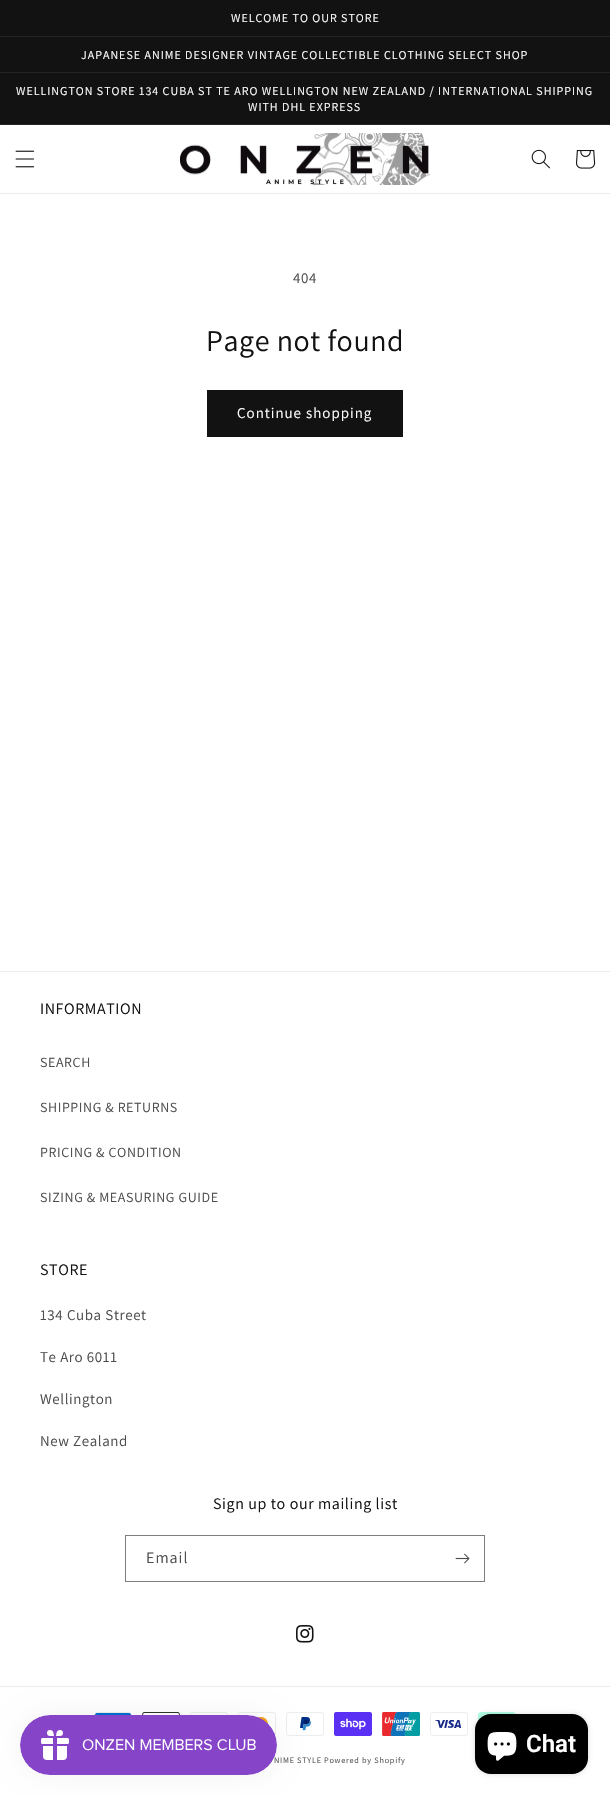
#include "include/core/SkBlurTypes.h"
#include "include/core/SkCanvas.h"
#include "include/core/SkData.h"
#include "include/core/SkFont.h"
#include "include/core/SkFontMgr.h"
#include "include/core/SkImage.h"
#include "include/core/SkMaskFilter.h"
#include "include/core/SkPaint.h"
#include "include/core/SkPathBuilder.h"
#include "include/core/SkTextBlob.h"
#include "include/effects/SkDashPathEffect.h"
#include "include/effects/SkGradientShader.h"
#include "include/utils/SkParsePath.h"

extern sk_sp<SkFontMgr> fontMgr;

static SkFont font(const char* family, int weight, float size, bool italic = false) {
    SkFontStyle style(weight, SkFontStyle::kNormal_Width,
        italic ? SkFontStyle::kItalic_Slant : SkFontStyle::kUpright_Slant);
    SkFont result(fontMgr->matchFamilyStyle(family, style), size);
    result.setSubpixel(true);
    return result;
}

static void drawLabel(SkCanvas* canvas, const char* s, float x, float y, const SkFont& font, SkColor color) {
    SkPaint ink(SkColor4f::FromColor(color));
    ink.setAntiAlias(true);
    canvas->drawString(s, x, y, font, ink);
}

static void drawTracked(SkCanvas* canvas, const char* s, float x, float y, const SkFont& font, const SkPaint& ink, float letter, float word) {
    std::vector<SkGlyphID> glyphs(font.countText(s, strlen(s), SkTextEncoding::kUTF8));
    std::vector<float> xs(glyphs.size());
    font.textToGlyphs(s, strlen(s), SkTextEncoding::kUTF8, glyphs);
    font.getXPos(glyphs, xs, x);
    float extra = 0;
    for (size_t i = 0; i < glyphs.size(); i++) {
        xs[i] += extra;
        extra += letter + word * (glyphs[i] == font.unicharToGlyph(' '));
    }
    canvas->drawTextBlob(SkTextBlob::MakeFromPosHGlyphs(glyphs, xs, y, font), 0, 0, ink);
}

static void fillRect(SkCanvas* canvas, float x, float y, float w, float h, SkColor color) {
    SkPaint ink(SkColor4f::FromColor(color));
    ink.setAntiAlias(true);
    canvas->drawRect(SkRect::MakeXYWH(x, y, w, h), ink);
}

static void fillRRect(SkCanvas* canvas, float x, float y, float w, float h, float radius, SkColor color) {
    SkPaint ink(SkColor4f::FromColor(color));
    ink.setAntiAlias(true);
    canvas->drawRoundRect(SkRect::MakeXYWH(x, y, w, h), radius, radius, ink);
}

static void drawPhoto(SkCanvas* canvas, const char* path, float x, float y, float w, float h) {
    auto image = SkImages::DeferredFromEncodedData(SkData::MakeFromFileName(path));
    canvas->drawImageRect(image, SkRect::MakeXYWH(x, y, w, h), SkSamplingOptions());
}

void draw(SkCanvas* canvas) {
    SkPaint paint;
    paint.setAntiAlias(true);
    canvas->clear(0xFFFFFFFF);
    fillRect(canvas, 0, 0, 610, 36, 0xFF121212);
    fillRect(canvas, 0, 36, 610, 1, 0xFF252525);
    SkFont font1 = font("Assistant", 400, 12);
    paint.setColor(0xFFFFFFFF);
    drawTracked(canvas, "WELCOME TO OUR STORE", 231, 22, font1, paint, 1, 0);
    fillRect(canvas, 0, 37, 610, 35, 0xFF121212);
    fillRect(canvas, 0, 72, 610, 1, 0xFF252525);
    drawTracked(canvas, "JAPANESE ANIME DESIGNER VINTAGE COLLECTIBLE CLOTHING SELECT SHOP", 81, 59, font1, paint, 1, 0);
    fillRect(canvas, 0, 73, 610, 51, 0xFF121212);
    fillRect(canvas, 0, 124, 610, 1, 0xFF252525);
    drawTracked(canvas, "WELLINGTON STORE 134 CUBA ST TE ARO WELLINGTON NEW ZEALAND / INTERNATIONAL SHIPPING", 16, 95, font1, paint, 1, 0);
    drawTracked(canvas, "WITH DHL EXPRESS", 248, 111, font1, paint, 1, 0);
    fillRect(canvas, 0, 193, 610, 1, 0xFFECECEC);
    drawPhoto(canvas, "assets/img1.png", 15, 150, 20, 18);
    drawPhoto(canvas, "assets/img2.png", 180, 133, 250, 52);
    drawPhoto(canvas, "assets/img3.png", 531, 149, 19, 20);
    drawPhoto(canvas, "assets/img4.png", 576, 150, 20, 19);
    SkFont font2 = font("Assistant", 400, 15);
    paint.setColor(0xFF4D4D4D);
    drawTracked(canvas, "404", 293, 283, font2, paint, 0.6f, 0);
    SkFont font3 = font("Assistant", 400, 30);
    paint.setColor(0xFF121212);
    drawTracked(canvas, "Page not found", 206, 351, font3, paint, 0.6f, 0);
    fillRect(canvas, 207, 390, 196, 47, 0xFF121212);
    paint.setColor(0xFFFFFFFF);
    drawTracked(canvas, "Continue shopping", 237, 418, font2, paint, 1, 0);
    fillRect(canvas, 0, 971, 610, 1, 0xFFECECEC);
    SkFont font4 = font("Assistant", 400, 16);
    paint.setColor(0xFF121212);
    drawTracked(canvas, "INFORMATION", 40, 1014, font4, paint, 0.6f, 0);
    SkFont font5 = font("Assistant", 400, 14);
    paint.setColor(0xFF4D4D4D);
    drawTracked(canvas, "SEARCH", 40, 1067, font5, paint, 0.6f, 0);
    drawTracked(canvas, "SHIPPING & RETURNS", 40, 1112, font5, paint, 0.6f, 0);
    drawTracked(canvas, "PRICING & CONDITION", 40, 1157, font5, paint, 0.6f, 0);
    drawTracked(canvas, "SIZING & MEASURING GUIDE", 40, 1202, font5, paint, 0.6f, 0);
    paint.setColor(0xFF121212);
    drawTracked(canvas, "STORE", 40, 1275, font4, paint, 0.6f, 0);
    paint.setColor(0xFF4D4D4D);
    drawTracked(canvas, "134 Cuba Street", 40, 1320, font2, paint, 0.6f, 0);
    drawTracked(canvas, "Te Aro 6011", 40, 1362, font2, paint, 0.6f, 0);
    drawTracked(canvas, "Wellington", 40, 1404, font2, paint, 0.6f, 0);
    drawTracked(canvas, "New Zealand", 40, 1446, font2, paint, 0.6f, 0);
    paint.setColor(0xFF121212);
    drawTracked(canvas, "Sign up to our mailing list", 213, 1509, font4, paint, 0.6f, 0);
    paint.setStroke(true);
    paint.setStrokeWidth(1);
    paint.setColor(0xFF7D7D7D);
    canvas->drawRect(SkRect::MakeXYWH(125.5f, 1535.5f, 359, 46), paint);
    paint.setStroke(false);
    paint.setColor(0xFF4D4D4D);
    drawTracked(canvas, "Email", 146, 1563, font4, paint, 1, 0);
    drawPhoto(canvas, "assets/img5.png", 455, 1553, 15, 11);
    drawPhoto(canvas, "assets/img6.png", 296, 1625, 18, 18);
    fillRect(canvas, 0, 1686, 610, 1, 0xFFECECEC);
    drawPhoto(canvas, "assets/img7.png", 94, 1712, 38, 3);
    drawPhoto(canvas, "assets/img8.png", 142, 1712, 38, 3);
    drawPhoto(canvas, "assets/img9.png", 190, 1712, 38, 3);
    drawPhoto(canvas, "assets/img10.png", 238, 1712, 38, 23);
    drawPhoto(canvas, "assets/img11.png", 286, 1712, 38, 24);
    drawPhoto(canvas, "assets/img12.png", 334, 1712, 38, 24);
    drawPhoto(canvas, "assets/img13.png", 382, 1712, 38, 24);
    drawPhoto(canvas, "assets/img14.png", 430, 1712, 38, 24);
    drawPhoto(canvas, "assets/img15.png", 478, 1712, 38, 9);
    SkFont font6 = font("Assistant", 400, 8.25f);
    drawTracked(canvas, "NIME STYLE", 274, 1763, font6, paint, 0.75f, 0);
    drawTracked(canvas, "Powered by Shopify", 324, 1763, font6, paint, 0.75f, 0);
    paint.setColor(0x0D000000);
    paint.setMaskFilter(SkMaskFilter::MakeBlur(kNormal_SkBlurStyle, 12.5f));
    canvas->drawRoundRect(SkRect::MakeXYWH(20, 1715, 257, 60), 30, 30, paint);
    paint.setMaskFilter(nullptr);
    drawPhoto(canvas, "assets/img16.png", 20, 1715, 257, 60);
    paint.setColor(0x26000000);
    paint.setMaskFilter(SkMaskFilter::MakeBlur(kNormal_SkBlurStyle, 2.5f));
    canvas->drawRoundRect(SkRect::MakeXYWH(475, 1714, 113, 60), 16, 16, paint);
    paint.setMaskFilter(nullptr);
    fillRRect(canvas, 475, 1714, 113, 60, 16, 0xFF000000);
    drawPhoto(canvas, "assets/img17.png", 487, 1732, 30, 29);
    SkFont font7 = font("Roboto", 600, 24);
    drawLabel(canvas, "Chat", 526, 1752, font7, 0xFFFFFFFF);
}
